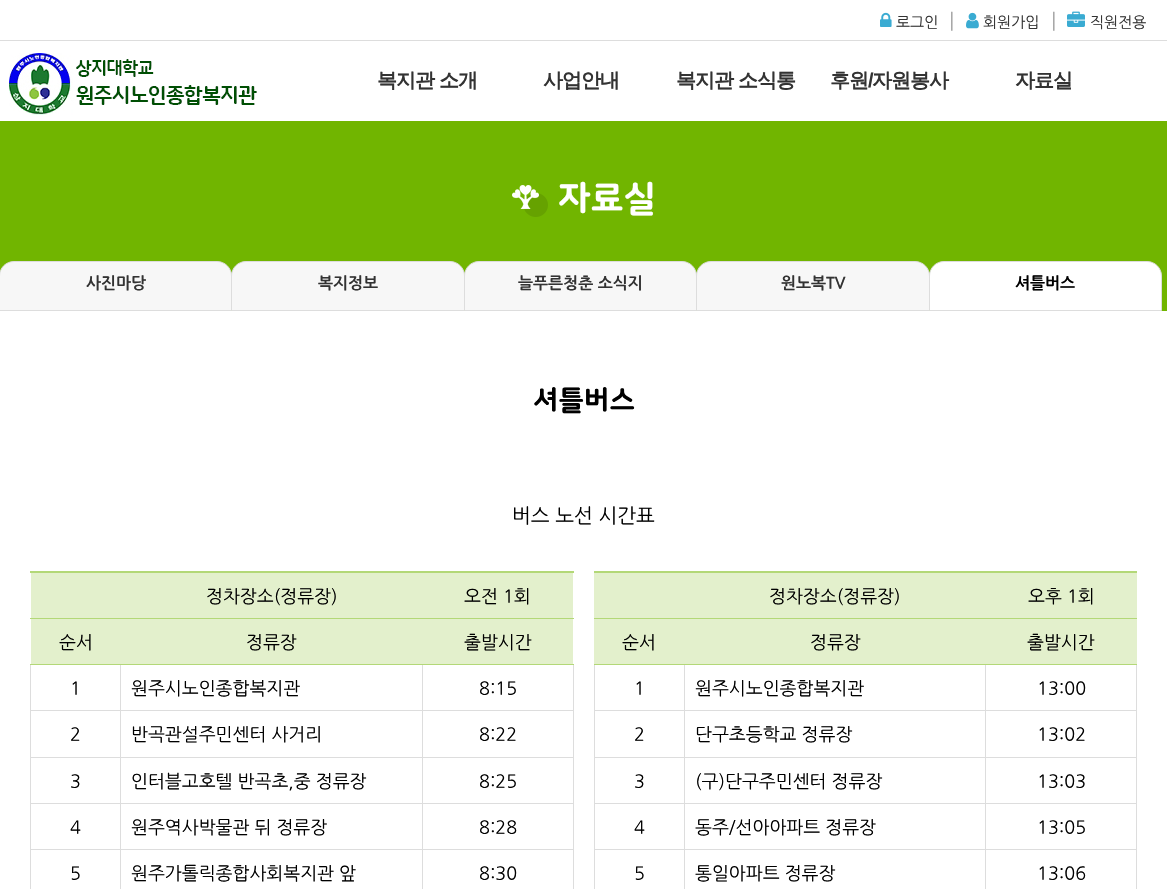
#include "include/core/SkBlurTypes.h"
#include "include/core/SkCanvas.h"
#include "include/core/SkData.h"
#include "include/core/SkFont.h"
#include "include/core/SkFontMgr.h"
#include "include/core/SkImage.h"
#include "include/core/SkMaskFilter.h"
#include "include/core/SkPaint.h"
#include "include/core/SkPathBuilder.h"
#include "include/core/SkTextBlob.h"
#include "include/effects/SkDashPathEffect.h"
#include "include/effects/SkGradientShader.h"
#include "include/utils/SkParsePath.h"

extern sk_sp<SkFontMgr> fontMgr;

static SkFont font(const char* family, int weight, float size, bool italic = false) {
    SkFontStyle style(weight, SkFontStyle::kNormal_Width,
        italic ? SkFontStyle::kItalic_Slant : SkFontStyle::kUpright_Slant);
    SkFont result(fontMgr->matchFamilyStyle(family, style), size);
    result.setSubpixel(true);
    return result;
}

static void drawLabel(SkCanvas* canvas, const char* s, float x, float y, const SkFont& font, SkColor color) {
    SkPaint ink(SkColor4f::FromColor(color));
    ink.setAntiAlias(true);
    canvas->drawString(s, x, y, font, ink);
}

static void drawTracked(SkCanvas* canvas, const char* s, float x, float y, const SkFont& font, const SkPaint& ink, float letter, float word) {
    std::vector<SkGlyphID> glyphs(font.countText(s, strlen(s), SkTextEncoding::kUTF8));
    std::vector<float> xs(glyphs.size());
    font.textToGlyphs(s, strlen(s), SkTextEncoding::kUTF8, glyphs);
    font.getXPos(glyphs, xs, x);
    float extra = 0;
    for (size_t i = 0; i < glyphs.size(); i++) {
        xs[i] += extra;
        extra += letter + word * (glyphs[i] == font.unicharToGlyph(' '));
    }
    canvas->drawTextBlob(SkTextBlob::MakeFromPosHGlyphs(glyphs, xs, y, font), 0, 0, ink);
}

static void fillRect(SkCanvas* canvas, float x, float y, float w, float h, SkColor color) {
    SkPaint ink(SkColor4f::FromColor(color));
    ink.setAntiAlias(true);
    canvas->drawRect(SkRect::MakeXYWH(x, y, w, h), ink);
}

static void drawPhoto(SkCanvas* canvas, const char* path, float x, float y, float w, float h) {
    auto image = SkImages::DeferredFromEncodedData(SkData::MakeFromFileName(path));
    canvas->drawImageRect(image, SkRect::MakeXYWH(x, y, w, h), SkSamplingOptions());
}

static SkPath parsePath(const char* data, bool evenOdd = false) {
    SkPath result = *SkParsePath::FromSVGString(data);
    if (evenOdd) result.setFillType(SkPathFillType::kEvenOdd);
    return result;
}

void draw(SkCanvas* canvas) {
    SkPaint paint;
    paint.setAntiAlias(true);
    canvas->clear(0xFFFFFFFF);
    fillRect(canvas, 0, 40, 1167, 1, 0xFFDDDDDD);
    drawPhoto(canvas, "assets/img1.png", 880, 12, 12, 15);
    SkFont font1 = font("NanumGothic", 400, 15);
    drawLabel(canvas, "로그인", 896, 27, font1, 0xFF333333);
    SkFont font2 = font("NanumGothic", 400, 19);
    drawLabel(canvas, "│", 943, 27, font2, 0xFF333333);
    drawPhoto(canvas, "assets/img2.png", 966, 12, 13, 17);
    drawLabel(canvas, "회원가입", 983, 27, font1, 0xFF333333);
    drawLabel(canvas, "│", 1045, 27, font2, 0xFF333333);
    drawPhoto(canvas, "assets/img3.png", 1067, 11, 18, 16);
    drawLabel(canvas, "직원전용", 1090, 27, font1, 0xFF333333);
    drawPhoto(canvas, "assets/img4.png", 9, 53, 248, 62);
    SkFont font3 = font("WenQuanYi Zen Hei", 700, 20);
    paint.setColor(0xFF333333);
    drawTracked(canvas, "복지관 소개", 377, 87, font3, paint, -1, 0);
    drawTracked(canvas, "사업안내", 543, 87, font3, paint, -1, 0);
    drawTracked(canvas, "복지관 소식통", 676, 87, font3, paint, -1, 0);
    drawTracked(canvas, "후원", 830, 87, font3, paint, -1, 0);
    SkFont font4 = font("Liberation Sans", 700, 20);
    drawTracked(canvas, "/", 868, 87, font4, paint, -1, 0);
    drawTracked(canvas, "자원봉사", 872, 87, font3, paint, -1, 0);
    drawTracked(canvas, "자료실", 1015, 87, font3, paint, -1, 0);
    fillRect(canvas, 0, 121, 1167, 190, 0xFF71B500);
    drawPhoto(canvas, "assets/img5.png", 512, 185, 36, 32);
    SkFont font5 = font("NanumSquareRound", 800, 36);
    drawLabel(canvas, "자료실", 558, 210, font5, 0xFFFFFFFF);
    paint.setColor(0xFFF7F7F7);
    canvas->drawPath(parsePath("M14 261.5H217C225 261.5 231.5 268 231.5 276V310.5H-.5V276C-.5 268 6 261.5 14 261.5Z"), paint);
    paint.setStroke(true);
    paint.setStrokeWidth(1);
    paint.setColor(0xFFDDDDDD);
    canvas->drawPath(parsePath("M14 261.5H217C225 261.5 231.5 268 231.5 276V310.5H-.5V276C-.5 268 6 261.5 14 261.5Z"), paint);
    SkFont font6 = font("NanumGothic", 700, 16);
    drawLabel(canvas, "사진마당", 86, 288, font6, 0xFF333333);
    paint.setStroke(false);
    paint.setColor(0xFFF7F7F7);
    canvas->drawPath(parsePath("M246 261.5H450C458 261.5 464.5 268 464.5 276V310.5H231.5V276C231.5 268 238 261.5 246 261.5Z"), paint);
    paint.setStroke(true);
    paint.setColor(0xFFDDDDDD);
    canvas->drawPath(parsePath("M246 261.5H450C458 261.5 464.5 268 464.5 276V310.5H231.5V276C231.5 268 238 261.5 246 261.5Z"), paint);
    drawLabel(canvas, "복지정보", 318, 288, font6, 0xFF333333);
    paint.setStroke(false);
    paint.setColor(0xFFF7F7F7);
    canvas->drawPath(parsePath("M479 261.5H682C690 261.5 696.5 268 696.5 276V310.5H464.5V276C464.5 268 471 261.5 479 261.5Z"), paint);
    paint.setStroke(true);
    paint.setColor(0xFFDDDDDD);
    canvas->drawPath(parsePath("M479 261.5H682C690 261.5 696.5 268 696.5 276V310.5H464.5V276C464.5 268 471 261.5 479 261.5Z"), paint);
    drawLabel(canvas, "늘푸른청춘 소식지", 518, 288, font6, 0xFF333333);
    paint.setStroke(false);
    paint.setColor(0xFFF7F7F7);
    canvas->drawPath(parsePath("M711 261.5H915C923 261.5 929.5 268 929.5 276V310.5H696.5V276C696.5 268 703 261.5 711 261.5Z"), paint);
    paint.setStroke(true);
    paint.setColor(0xFFDDDDDD);
    canvas->drawPath(parsePath("M711 261.5H915C923 261.5 929.5 268 929.5 276V310.5H696.5V276C696.5 268 703 261.5 711 261.5Z"), paint);
    drawLabel(canvas, "원노복TV", 781, 288, font6, 0xFF333333);
    paint.setStroke(false);
    paint.setColor(0xFFFFFFFF);
    canvas->drawPath(parsePath("M944 261.5H1147C1155 261.5 1161.5 268 1161.5 276V310.5H929.5V276C929.5 268 936 261.5 944 261.5Z"), paint);
    paint.setStroke(true);
    paint.setColor(0xFFDDDDDD);
    canvas->drawPath(parsePath("M944 261.5H1147C1155 261.5 1161.5 268 1161.5 276V310.5H929.5V276C929.5 268 936 261.5 944 261.5Z"), paint);
    drawLabel(canvas, "셔틀버스", 1015, 288, font6, 0xFF000000);
    SkFont font7 = font("NanumSquareRound", 800, 28);
    drawLabel(canvas, "셔틀버스", 533, 409, font7, 0xFF000000);
    SkFont font8 = font("NanumGothic", 400, 20);
    drawLabel(canvas, "버스 노선 시간표", 512, 522, font8, 0xFF000000);
    fillRect(canvas, 30, 571, 544, 2, 0xFFB3D877);
    fillRect(canvas, 31, 573, 542, 45, 0xFFE3F0CC);
    SkFont font9 = font("NanumGothic", 400, 18);
    drawLabel(canvas, "정차장소(정류장)", 206, 602, font9, 0xFF000000);
    fillRect(canvas, 30, 618, 544, 1, 0xFFB3D877);
    drawLabel(canvas, "오전 1회", 464, 602, font9, 0xFF000000);
    fillRect(canvas, 31, 619, 542, 45, 0xFFE3F0CC);
    drawLabel(canvas, "순서", 59, 648, font9, 0xFF000000);
    drawLabel(canvas, "정류장", 246, 648, font9, 0xFF000000);
    fillRect(canvas, 422, 710, 152, 1, 0xFFDDDDDD);
    fillRect(canvas, 422, 757, 152, 1, 0xFFDDDDDD);
    fillRect(canvas, 422, 803, 152, 1, 0xFFDDDDDD);
    fillRect(canvas, 422, 849, 152, 1, 0xFFDDDDDD);
    fillRect(canvas, 422, 849, 1, 40, 0xFFDDDDDD);
    fillRect(canvas, 120, 849, 303, 1, 0xFFDDDDDD);
    fillRect(canvas, 422, 803, 1, 47, 0xFFDDDDDD);
    fillRect(canvas, 120, 803, 303, 1, 0xFFDDDDDD);
    fillRect(canvas, 422, 757, 1, 47, 0xFFDDDDDD);
    fillRect(canvas, 120, 757, 303, 1, 0xFFDDDDDD);
    fillRect(canvas, 422, 710, 1, 48, 0xFFDDDDDD);
    fillRect(canvas, 120, 710, 303, 1, 0xFFDDDDDD);
    fillRect(canvas, 120, 849, 1, 40, 0xFFDDDDDD);
    fillRect(canvas, 30, 849, 91, 1, 0xFFDDDDDD);
    fillRect(canvas, 120, 803, 1, 47, 0xFFDDDDDD);
    fillRect(canvas, 30, 803, 91, 1, 0xFFDDDDDD);
    fillRect(canvas, 120, 757, 1, 47, 0xFFDDDDDD);
    fillRect(canvas, 30, 757, 91, 1, 0xFFDDDDDD);
    fillRect(canvas, 120, 710, 1, 48, 0xFFDDDDDD);
    fillRect(canvas, 30, 710, 91, 1, 0xFFDDDDDD);
    fillRect(canvas, 120, 664, 1, 47, 0xFFDDDDDD);
    fillRect(canvas, 422, 664, 1, 47, 0xFFDDDDDD);
    fillRect(canvas, 30, 849, 1, 40, 0xFFDDDDDD);
    fillRect(canvas, 30, 803, 1, 47, 0xFFDDDDDD);
    fillRect(canvas, 30, 757, 1, 47, 0xFFDDDDDD);
    fillRect(canvas, 30, 664, 1, 94, 0xFFDDDDDD);
    fillRect(canvas, 573, 849, 1, 40, 0xFFDDDDDD);
    fillRect(canvas, 573, 803, 1, 47, 0xFFDDDDDD);
    fillRect(canvas, 573, 757, 1, 47, 0xFFDDDDDD);
    fillRect(canvas, 573, 664, 1, 94, 0xFFDDDDDD);
    fillRect(canvas, 30, 664, 544, 1, 0xFFB3D877);
    drawLabel(canvas, "출발시간", 464, 648, font9, 0xFF000000);
    drawLabel(canvas, "1", 70, 694, font9, 0xFF000000);
    drawLabel(canvas, "원주시노인종합복지관", 131, 694, font9, 0xFF000000);
    drawLabel(canvas, "8:15", 479, 694, font9, 0xFF000000);
    drawLabel(canvas, "2", 70, 740, font9, 0xFF000000);
    drawLabel(canvas, "반곡관설주민센터 사거리", 131, 740, font9, 0xFF000000);
    drawLabel(canvas, "8:22", 479, 740, font9, 0xFF000000);
    drawLabel(canvas, "3", 70, 787, font9, 0xFF000000);
    drawLabel(canvas, "인터블고호텔 반곡초,중 정류장", 131, 787, font9, 0xFF000000);
    drawLabel(canvas, "8:25", 479, 787, font9, 0xFF000000);
    drawLabel(canvas, "4", 70, 833, font9, 0xFF000000);
    drawLabel(canvas, "원주역사박물관 뒤 정류장", 131, 833, font9, 0xFF000000);
    drawLabel(canvas, "8:28", 479, 833, font9, 0xFF000000);
    drawLabel(canvas, "5", 70, 879, font9, 0xFF000000);
    drawLabel(canvas, "원주가톨릭종합사회복지관 앞", 131, 879, font9, 0xFF000000);
    drawLabel(canvas, "8:30", 479, 879, font9, 0xFF000000);
    fillRect(canvas, 594, 571, 543, 2, 0xFFB3D877);
    fillRect(canvas, 594, 573, 543, 45, 0xFFE3F0CC);
    drawLabel(canvas, "정차장소(정류장)", 769, 602, font9, 0xFF000000);
    fillRect(canvas, 594, 618, 543, 1, 0xFFB3D877);
    drawLabel(canvas, "오후 1회", 1028, 602, font9, 0xFF000000);
    fillRect(canvas, 594, 619, 543, 45, 0xFFE3F0CC);
    drawLabel(canvas, "순서", 622, 648, font9, 0xFF000000);
    drawLabel(canvas, "정류장", 810, 648, font9, 0xFF000000);
    fillRect(canvas, 985, 710, 152, 1, 0xFFDDDDDD);
    fillRect(canvas, 985, 757, 152, 1, 0xFFDDDDDD);
    fillRect(canvas, 985, 803, 152, 1, 0xFFDDDDDD);
    fillRect(canvas, 985, 849, 152, 1, 0xFFDDDDDD);
    fillRect(canvas, 985, 849, 1, 40, 0xFFDDDDDD);
    fillRect(canvas, 684, 849, 302, 1, 0xFFDDDDDD);
    fillRect(canvas, 985, 803, 1, 47, 0xFFDDDDDD);
    fillRect(canvas, 684, 803, 302, 1, 0xFFDDDDDD);
    fillRect(canvas, 985, 757, 1, 47, 0xFFDDDDDD);
    fillRect(canvas, 684, 757, 302, 1, 0xFFDDDDDD);
    fillRect(canvas, 985, 710, 1, 48, 0xFFDDDDDD);
    fillRect(canvas, 684, 710, 302, 1, 0xFFDDDDDD);
    fillRect(canvas, 684, 849, 1, 40, 0xFFDDDDDD);
    fillRect(canvas, 594, 849, 91, 1, 0xFFDDDDDD);
    fillRect(canvas, 684, 803, 1, 47, 0xFFDDDDDD);
    fillRect(canvas, 594, 803, 91, 1, 0xFFDDDDDD);
    fillRect(canvas, 684, 757, 1, 47, 0xFFDDDDDD);
    fillRect(canvas, 594, 757, 91, 1, 0xFFDDDDDD);
    fillRect(canvas, 684, 710, 1, 48, 0xFFDDDDDD);
    fillRect(canvas, 594, 710, 91, 1, 0xFFDDDDDD);
    fillRect(canvas, 684, 664, 1, 47, 0xFFDDDDDD);
    fillRect(canvas, 985, 664, 1, 47, 0xFFDDDDDD);
    fillRect(canvas, 594, 849, 1, 40, 0xFFDDDDDD);
    fillRect(canvas, 594, 803, 1, 47, 0xFFDDDDDD);
    fillRect(canvas, 594, 757, 1, 47, 0xFFDDDDDD);
    fillRect(canvas, 594, 664, 1, 94, 0xFFDDDDDD);
    fillRect(canvas, 1136, 849, 1, 40, 0xFFDDDDDD);
    fillRect(canvas, 1136, 803, 1, 47, 0xFFDDDDDD);
    fillRect(canvas, 1136, 757, 1, 47, 0xFFDDDDDD);
    fillRect(canvas, 1136, 664, 1, 94, 0xFFDDDDDD);
    fillRect(canvas, 594, 664, 543, 1, 0xFFB3D877);
    drawLabel(canvas, "출발시간", 1027, 648, font9, 0xFF000000);
    drawLabel(canvas, "1", 634, 694, font9, 0xFF000000);
    drawLabel(canvas, "원주시노인종합복지관", 695, 694, font9, 0xFF000000);
    drawLabel(canvas, "13:00", 1037, 694, font9, 0xFF000000);
    drawLabel(canvas, "2", 634, 740, font9, 0xFF000000);
    drawLabel(canvas, "단구초등학교 정류장", 695, 740, font9, 0xFF000000);
    drawLabel(canvas, "13:02", 1037, 740, font9, 0xFF000000);
    drawLabel(canvas, "3", 634, 787, font9, 0xFF000000);
    drawLabel(canvas, "(구)단구주민센터 정류장", 695, 787, font9, 0xFF000000);
    drawLabel(canvas, "13:03", 1037, 787, font9, 0xFF000000);
    drawLabel(canvas, "4", 634, 833, font9, 0xFF000000);
    drawLabel(canvas, "동주/선아아파트 정류장", 695, 833, font9, 0xFF000000);
    drawLabel(canvas, "13:05", 1037, 833, font9, 0xFF000000);
    drawLabel(canvas, "5", 634, 879, font9, 0xFF000000);
    drawLabel(canvas, "통일아파트 정류장", 695, 879, font9, 0xFF000000);
    drawLabel(canvas, "13:06", 1037, 879, font9, 0xFF000000);
}
